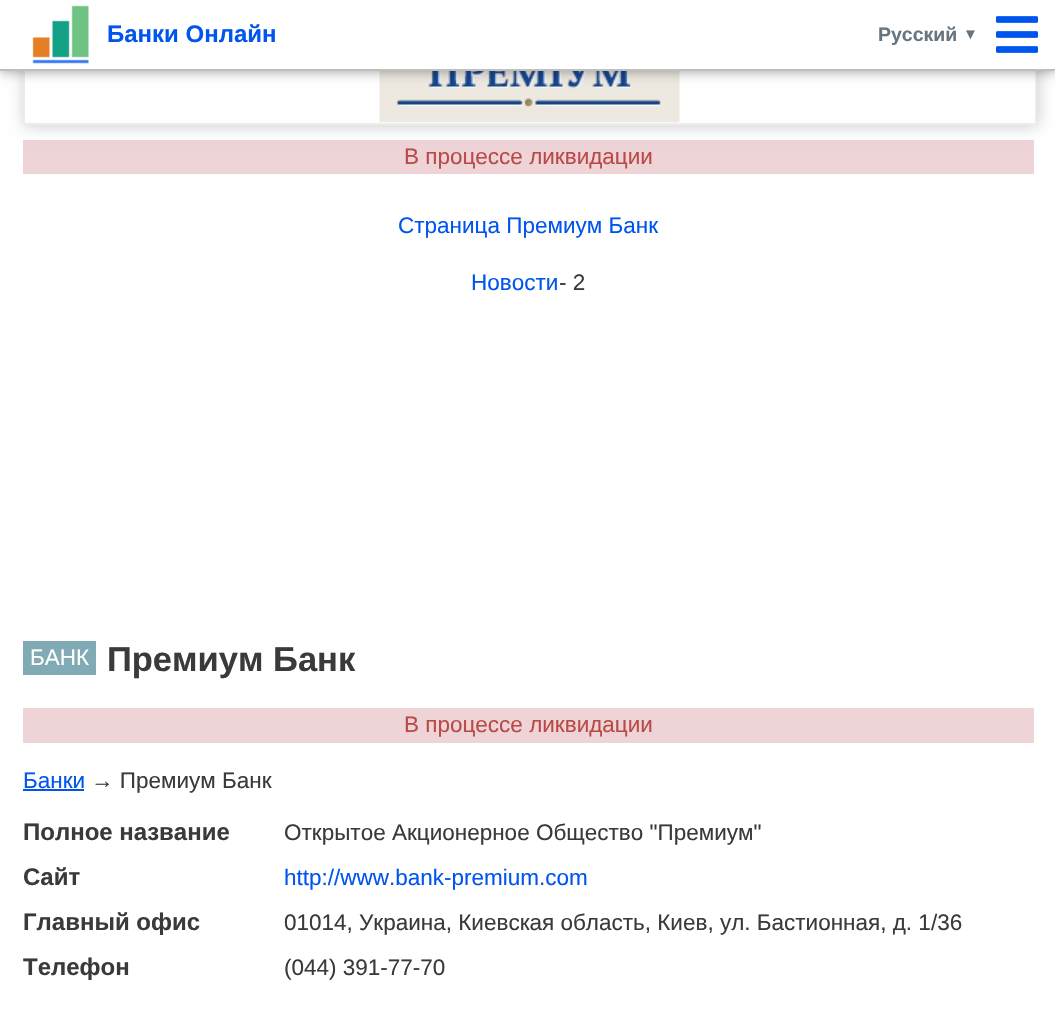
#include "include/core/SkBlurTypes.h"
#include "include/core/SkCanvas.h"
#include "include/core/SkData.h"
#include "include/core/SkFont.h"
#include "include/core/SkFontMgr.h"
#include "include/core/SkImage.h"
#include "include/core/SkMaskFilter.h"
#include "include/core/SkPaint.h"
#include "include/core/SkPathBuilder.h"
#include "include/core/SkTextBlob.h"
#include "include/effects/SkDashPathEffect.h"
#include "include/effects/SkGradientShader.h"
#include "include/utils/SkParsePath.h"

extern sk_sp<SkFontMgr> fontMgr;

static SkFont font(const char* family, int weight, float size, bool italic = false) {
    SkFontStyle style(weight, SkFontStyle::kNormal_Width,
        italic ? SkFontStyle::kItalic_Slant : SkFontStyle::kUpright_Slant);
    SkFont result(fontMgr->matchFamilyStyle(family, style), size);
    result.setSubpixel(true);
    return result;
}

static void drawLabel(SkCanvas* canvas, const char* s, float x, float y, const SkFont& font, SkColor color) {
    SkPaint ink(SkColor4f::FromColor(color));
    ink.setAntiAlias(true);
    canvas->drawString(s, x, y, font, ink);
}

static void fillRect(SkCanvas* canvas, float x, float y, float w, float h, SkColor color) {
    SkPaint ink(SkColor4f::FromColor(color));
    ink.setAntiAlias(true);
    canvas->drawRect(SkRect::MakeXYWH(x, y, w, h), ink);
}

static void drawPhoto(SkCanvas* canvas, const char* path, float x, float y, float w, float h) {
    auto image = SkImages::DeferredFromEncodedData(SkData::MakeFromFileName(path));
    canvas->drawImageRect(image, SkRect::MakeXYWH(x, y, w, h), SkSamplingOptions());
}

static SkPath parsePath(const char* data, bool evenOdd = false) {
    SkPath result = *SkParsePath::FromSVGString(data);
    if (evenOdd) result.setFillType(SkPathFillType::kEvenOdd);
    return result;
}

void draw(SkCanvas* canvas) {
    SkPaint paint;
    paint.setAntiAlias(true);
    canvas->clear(0xFFFFFFFF);
    fillRect(canvas, 23, 140, 1011, 34, 0xFFEED3D7);
    canvas->save();
    canvas->clipPath(parsePath("M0 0H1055V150H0ZM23-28H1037V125H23Z", true), true);
    paint.setColor(0xFFCCCCCC);
    paint.setMaskFilter(SkMaskFilter::MakeBlur(kNormal_SkBlurStyle, 7.5f));
    canvas->drawRect(SkRect::MakeXYWH(24, -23, 1014, 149), paint);
    paint.setMaskFilter(nullptr);
    canvas->restore();
    paint.setStroke(true);
    paint.setStrokeWidth(2);
    paint.setColor(0xFFECECEC);
    canvas->drawRect(SkRect::MakeXYWH(24, -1, 1012, 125), paint);
    drawPhoto(canvas, "assets/img3.png", 379, 71, 301, 52);
    paint.setStroke(false);
    paint.setColor(0x66000000);
    paint.setMaskFilter(SkMaskFilter::MakeBlur(kNormal_SkBlurStyle, 6));
    canvas->drawRect(SkRect::MakeXYWH(0, 0, 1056, 71), paint);
    paint.setMaskFilter(nullptr);
    fillRect(canvas, 0, 0, 1055, 69, 0xFFFFFFFF);
    fillRect(canvas, 0, 69, 1055, 2, 0xFFBFBFBF);
    drawPhoto(canvas, "assets/img1.png", 32, 5, 57, 59);
    SkFont font1 = font("Liberation Sans", 700, 24);
    drawLabel(canvas, "Банки Онлайн", 107, 42, font1, 0xFF0055EE);
    SkFont font2 = font("Liberation Sans", 700, 19.5f);
    drawLabel(canvas, "Русский", 878, 41, font2, 0xFF66757F);
    SkFont font3 = font("Liberation Sans", 700, 15);
    drawLabel(canvas, "▼", 963, 39, font3, 0xFF66757F);
    drawPhoto(canvas, "assets/img2.png", 996, 16, 42, 37);
    SkFont font4 = font("Liberation Sans", 400, 22.5f);
    drawLabel(canvas, "В процессе ликвидации", 404, 164, font4, 0xFFB94A48);
    drawLabel(canvas, "Страница Премиум Банк", 398, 233, font4, 0xFF0055EE);
    drawLabel(canvas, "Новости", 471, 290, font4, 0xFF0055EE);
    drawLabel(canvas, "- 2", 559, 290, font4, 0xFF3A3A3A);
    fillRect(canvas, 23, 641, 73, 34, 0xFF80AAB4);
    drawLabel(canvas, "БАНК", 30, 665, font4, 0xFFFFFFFF);
    SkFont font5 = font("Liberation Sans", 700, 34.5f);
    drawLabel(canvas, "Премиум Банк", 107, 671, font5, 0xFF3A3A3A);
    fillRect(canvas, 23, 708, 1011, 35, 0xFFEED3D7);
    drawLabel(canvas, "В процессе ликвидации", 404, 732, font4, 0xFFB94A48);
    drawLabel(canvas, "Банки", 23, 788, font4, 0xFF0055EE);
    fillRect(canvas, 23, 789, 61, 2, 0xFF0055EE);
    drawLabel(canvas, "→ Премиум Банк", 91, 788, font4, 0xFF3A3A3A);
    drawLabel(canvas, "Полное название", 23, 840, font1, 0xFF3A3A3A);
    drawLabel(canvas, "Открытое Акционерное Общество \"Премиум\"", 284, 840, font4, 0xFF3A3A3A);
    drawLabel(canvas, "Сайт", 23, 885, font1, 0xFF3A3A3A);
    drawLabel(canvas, "http://www.bank-premium.com", 284, 885, font4, 0xFF0055EE);
    drawLabel(canvas, "Главный офис", 23, 930, font1, 0xFF3A3A3A);
    drawLabel(canvas, "01014, Украина, Киевская область, Киев, ул. Бастионная, д. 1/36", 284, 930, font4, 0xFF3A3A3A);
    drawLabel(canvas, "Телефон", 23, 975, font1, 0xFF3A3A3A);
    drawLabel(canvas, "(044) 391-77-70", 284, 975, font4, 0xFF3A3A3A);
}
